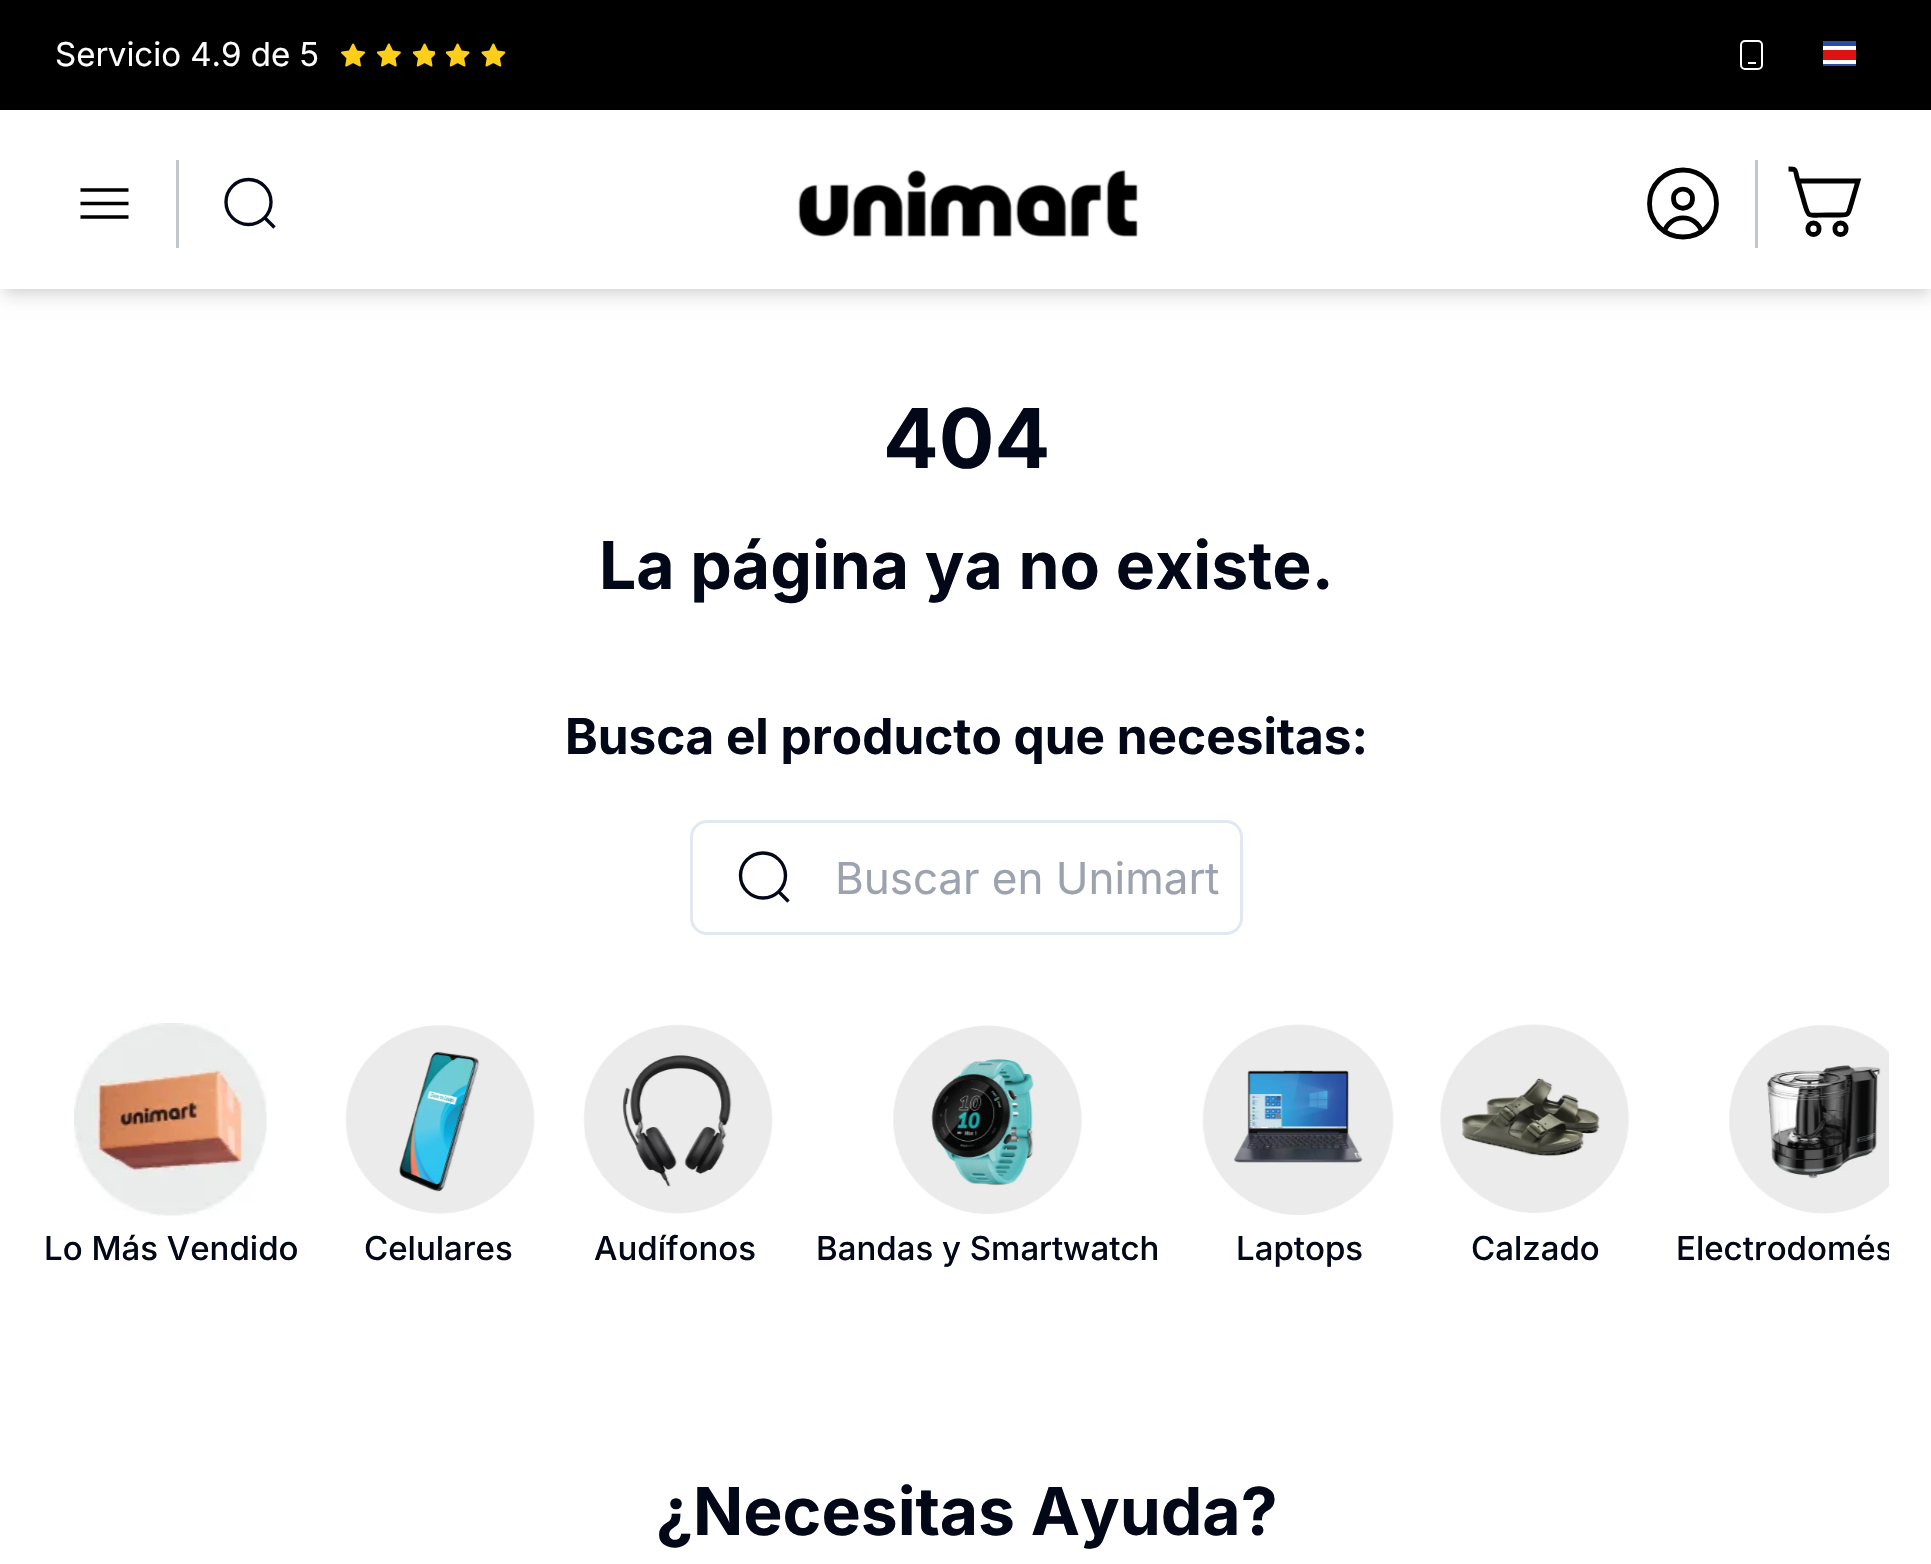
#include "include/core/SkBlurTypes.h"
#include "include/core/SkCanvas.h"
#include "include/core/SkData.h"
#include "include/core/SkFont.h"
#include "include/core/SkFontMgr.h"
#include "include/core/SkImage.h"
#include "include/core/SkMaskFilter.h"
#include "include/core/SkPaint.h"
#include "include/core/SkPathBuilder.h"
#include "include/core/SkTextBlob.h"
#include "include/effects/SkDashPathEffect.h"
#include "include/effects/SkGradientShader.h"
#include "include/utils/SkParsePath.h"

extern sk_sp<SkFontMgr> fontMgr;

static SkFont font(const char* family, int weight, float size, bool italic = false) {
    SkFontStyle style(weight, SkFontStyle::kNormal_Width,
        italic ? SkFontStyle::kItalic_Slant : SkFontStyle::kUpright_Slant);
    SkFont result(fontMgr->matchFamilyStyle(family, style), size);
    result.setSubpixel(true);
    return result;
}

static void drawLabel(SkCanvas* canvas, const char* s, float x, float y, const SkFont& font, SkColor color) {
    SkPaint ink(SkColor4f::FromColor(color));
    ink.setAntiAlias(true);
    canvas->drawString(s, x, y, font, ink);
}

static void fillRect(SkCanvas* canvas, float x, float y, float w, float h, SkColor color) {
    SkPaint ink(SkColor4f::FromColor(color));
    ink.setAntiAlias(true);
    canvas->drawRect(SkRect::MakeXYWH(x, y, w, h), ink);
}

static void drawPhoto(SkCanvas* canvas, const char* path, float x, float y, float w, float h) {
    auto image = SkImages::DeferredFromEncodedData(SkData::MakeFromFileName(path));
    canvas->drawImageRect(image, SkRect::MakeXYWH(x, y, w, h), SkSamplingOptions());
}

static SkPath parsePath(const char* data, bool evenOdd = false) {
    SkPath result = *SkParsePath::FromSVGString(data);
    if (evenOdd) result.setFillType(SkPathFillType::kEvenOdd);
    return result;
}

void draw(SkCanvas* canvas) {
    SkPaint paint;
    paint.setAntiAlias(true);
    canvas->clear(0xFFFFFFFF);
    paint.setColor(0x1A000000);
    paint.setMaskFilter(SkMaskFilter::MakeBlur(kNormal_SkBlurStyle, 5.5f));
    canvas->drawRect(SkRect::MakeXYWH(6, 11, 1922, 278), paint);
    paint.setMaskFilter(nullptr);
    paint.setMaskFilter(SkMaskFilter::MakeBlur(kNormal_SkBlurStyle, 8));
    canvas->drawRect(SkRect::MakeXYWH(3, 14, 1928, 283), paint);
    paint.setMaskFilter(nullptr);
    fillRect(canvas, 0, 110, 1931, 179, 0xFFFFFFFF);
    fillRect(canvas, 0, 0, 1931, 110, 0xFF000000);
    SkFont font1 = font("Inter", 400, 33);
    drawLabel(canvas, "Servicio 4.9 de 5", 55, 66, font1, 0xFFFFFFFF);
    drawPhoto(canvas, "assets/img1.png", 341, 43, 25, 24);
    drawPhoto(canvas, "assets/img2.png", 377, 43, 24, 24);
    drawPhoto(canvas, "assets/img3.png", 413, 43, 22, 24);
    drawPhoto(canvas, "assets/img4.png", 446, 43, 24, 24);
    drawPhoto(canvas, "assets/img5.png", 481, 43, 25, 24);
    paint.setStroke(true);
    paint.setStrokeWidth(2);
    paint.setColor(0xFFFFFFFF);
    canvas->drawRoundRect(SkRect::MakeXYWH(1741, 41, 21, 28), 4, 4, paint);
    fillRect(canvas, 1748, 62, 8, 2, 0xFFFFFFFF);
    fillRect(canvas, 1823, 41, 33, 25, 0xFF2B4BA5);
    fillRect(canvas, 1823, 46, 33, 18, 0xFFFFFFFF);
    fillRect(canvas, 1823, 50, 33, 10, 0xFFDD1212);
    paint.setStrokeWidth(3.4f);
    paint.setColor(0xFF000000);
    canvas->drawPath(parsePath("M80.5 190H128.5M80.5 203.5H128.5M80.5 217H128.5"), paint);
    fillRect(canvas, 176, 160, 3, 88, 0xFFC1C7CA);
    paint.setColor(0xFF020817);
    canvas->drawPath(parsePath("M274.5 227.5L264 217"), paint);
    canvas->drawCircle(248.5f, 202, 22.5f, paint);
    drawPhoto(canvas, "assets/img6.png", 798, 170, 340, 67);
    paint.setStrokeWidth(4.8f);
    paint.setColor(0xFF000000);
    canvas->drawPath(parsePath("M1702 232.5C1696 213 1670 213 1664 232.5M1692.5 198.5C1692.5 211.5 1673.5 211.5 1673.5 198.5C1673.5 186 1692.5 186 1692.5 198.5Z"), paint);
    canvas->drawCircle(1683, 203.5f, 33.5f, paint);
    fillRect(canvas, 1755, 160, 3, 88, 0xFFC1C7CA);
    canvas->drawPath(parsePath("M1813.5 234.5C1821 234.5 1821 223 1813.5 223C1806 223 1806 234.5 1813.5 234.5ZM1840.5 234.5C1848 234.5 1848 223 1840.5 223C1833 223 1833 234.5 1840.5 234.5ZM1798.5 181H1858L1850.5 206.5C1848 215.5 1848 215 1838.5 215H1828C1805.5 215 1809 219 1803 198L1797 177.5C1795 169 1796.5 169 1788.5 169"), paint);
    SkFont font2 = font("Inter", 700, 82.5f);
    drawLabel(canvas, "404", 883, 468, font2, 0xFF020817);
    SkFont font3 = font("Inter", 700, 66);
    drawLabel(canvas, "La página ya no existe.", 599, 589, font3, 0xFF020817);
    SkFont font4 = font("Inter", 700, 49.5f);
    drawLabel(canvas, "Busca el producto que necesitas:", 565, 754, font4, 0xFF020817);
    paint.setStrokeWidth(3);
    paint.setColor(0xFFE2E8F0);
    canvas->drawRoundRect(SkRect::MakeXYWH(691.5f, 821.5f, 550, 112), 15.5f, 15.5f, paint);
    paint.setStrokeWidth(3.4f);
    paint.setColor(0xFF020817);
    canvas->drawPath(parsePath("M788.5 901.5L778 891"), paint);
    canvas->drawCircle(763, 875.5f, 22.5f, paint);
    SkFont font5 = font("Inter", 400, 44);
    drawLabel(canvas, "Buscar en Unimart", 835, 894, font5, 0xFF9CA3AF);
    drawPhoto(canvas, "assets/img7.png", 74, 1023, 193, 193);
    SkFont font6 = font("Inter", 500, 33);
    drawLabel(canvas, "Lo Más Vendido", 44, 1260, font6, 0xFF020817);
    drawPhoto(canvas, "assets/img8.png", 345, 1025, 190, 189);
    drawLabel(canvas, "Celulares", 364, 1260, font6, 0xFF020817);
    drawPhoto(canvas, "assets/img9.png", 583, 1024, 190, 190);
    drawLabel(canvas, "Audífonos", 594, 1260, font6, 0xFF020817);
    drawPhoto(canvas, "assets/img10.png", 893, 1025, 189, 189);
    drawLabel(canvas, "Bandas y Smartwatch", 816, 1260, font6, 0xFF020817);
    drawPhoto(canvas, "assets/img11.png", 1202, 1024, 192, 191);
    drawLabel(canvas, "Laptops", 1236, 1260, font6, 0xFF020817);
    drawPhoto(canvas, "assets/img12.png", 1440, 1024, 189, 189);
    drawLabel(canvas, "Calzado", 1471, 1260, font6, 0xFF020817);
    drawPhoto(canvas, "assets/img13.png", 1729, 1025, 160, 189);
    canvas->save();
    canvas->clipRect(SkRect::MakeXYWH(1675, 1227, 214, 44));
    drawLabel(canvas, "Electrodomés", 1676, 1260, font6, 0xFF020817);
    canvas->restore();
    drawLabel(canvas, "¿Necesitas Ayuda?", 656, 1535, font3, 0xFF020817);
}
